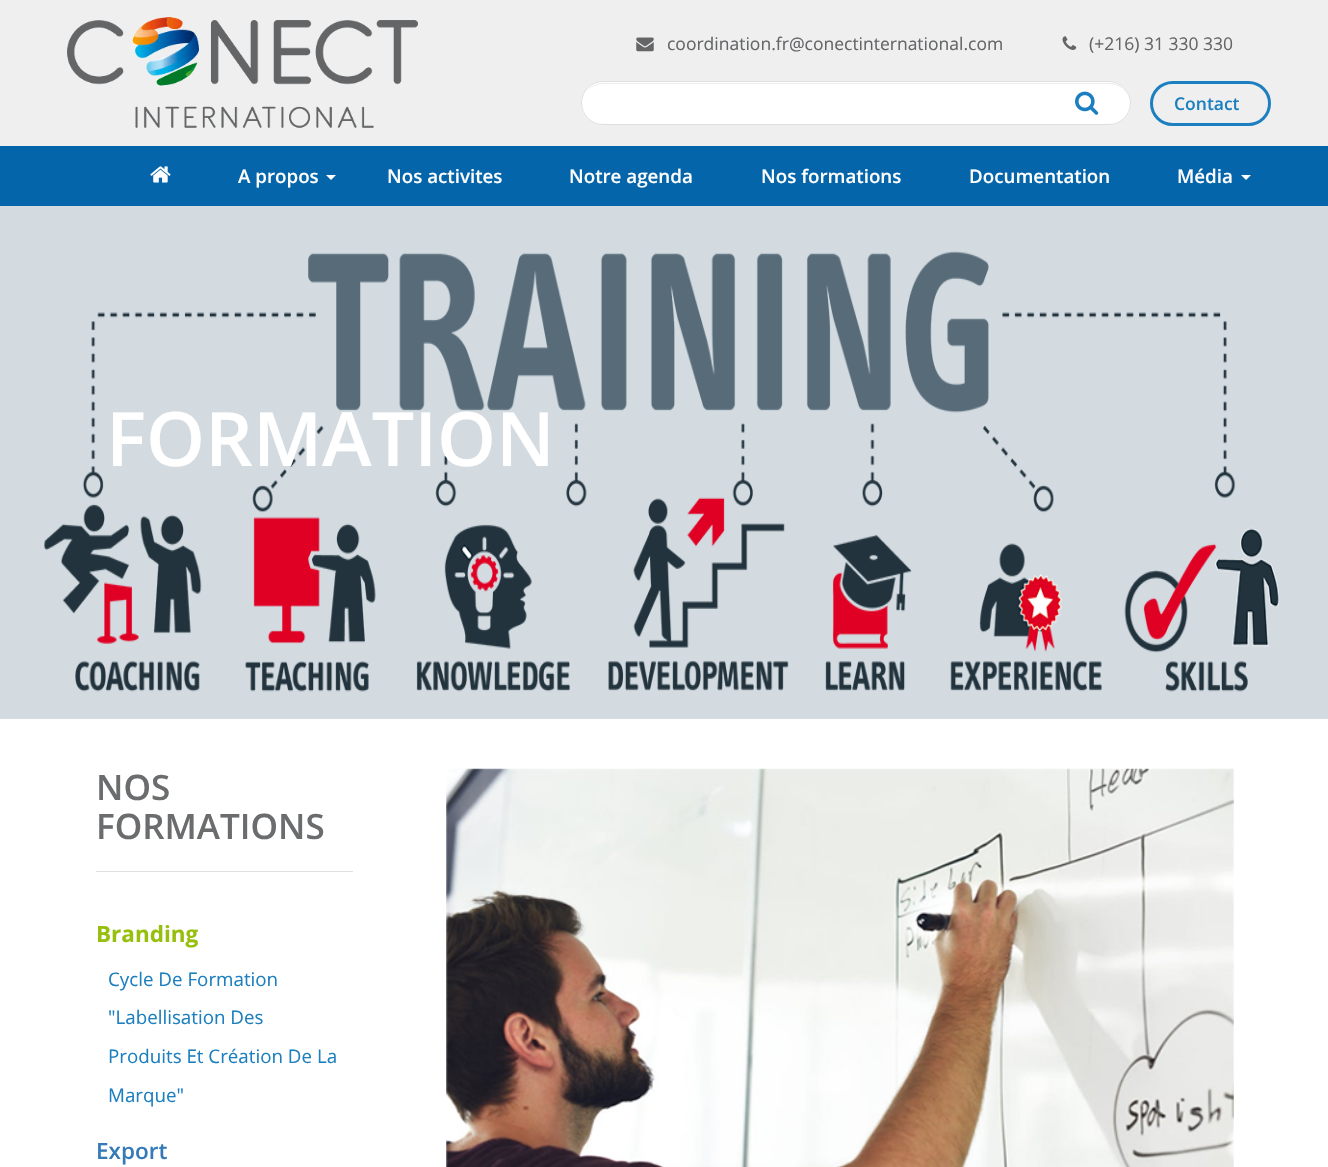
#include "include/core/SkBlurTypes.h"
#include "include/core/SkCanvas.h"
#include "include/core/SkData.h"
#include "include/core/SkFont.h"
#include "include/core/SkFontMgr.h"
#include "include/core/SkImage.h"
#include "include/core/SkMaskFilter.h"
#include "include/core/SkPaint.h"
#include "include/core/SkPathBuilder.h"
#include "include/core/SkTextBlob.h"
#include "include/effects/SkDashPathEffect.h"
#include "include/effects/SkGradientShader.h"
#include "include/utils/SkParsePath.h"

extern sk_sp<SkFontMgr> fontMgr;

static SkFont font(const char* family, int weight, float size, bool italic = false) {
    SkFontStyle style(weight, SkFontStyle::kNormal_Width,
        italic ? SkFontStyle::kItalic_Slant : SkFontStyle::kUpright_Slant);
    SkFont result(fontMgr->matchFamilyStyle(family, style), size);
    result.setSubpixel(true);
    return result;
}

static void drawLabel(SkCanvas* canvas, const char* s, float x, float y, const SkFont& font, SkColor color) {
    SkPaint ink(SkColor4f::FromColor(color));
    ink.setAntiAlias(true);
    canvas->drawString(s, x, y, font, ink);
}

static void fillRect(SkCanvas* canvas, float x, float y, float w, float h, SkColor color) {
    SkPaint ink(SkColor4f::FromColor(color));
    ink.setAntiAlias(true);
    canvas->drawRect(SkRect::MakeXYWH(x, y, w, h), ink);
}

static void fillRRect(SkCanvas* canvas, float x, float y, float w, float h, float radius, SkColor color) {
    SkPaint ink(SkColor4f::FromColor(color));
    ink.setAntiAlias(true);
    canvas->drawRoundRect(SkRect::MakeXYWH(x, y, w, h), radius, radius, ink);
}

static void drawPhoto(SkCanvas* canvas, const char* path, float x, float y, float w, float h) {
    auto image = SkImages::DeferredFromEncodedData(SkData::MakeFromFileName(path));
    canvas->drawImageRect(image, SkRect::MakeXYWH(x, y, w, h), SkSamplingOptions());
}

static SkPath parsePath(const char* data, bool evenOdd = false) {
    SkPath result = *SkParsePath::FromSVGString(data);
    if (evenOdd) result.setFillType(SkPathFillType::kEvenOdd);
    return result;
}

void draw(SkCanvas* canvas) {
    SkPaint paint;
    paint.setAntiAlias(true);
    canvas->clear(0xFFFFFFFF);
    fillRect(canvas, 0, 0, 1328, 146, 0xFFEFEFEF);
    drawPhoto(canvas, "assets/img1.png", 67, 17, 351, 111);
    drawPhoto(canvas, "assets/img2.png", 636, 37, 18, 15);
    SkFont font1 = font("Open Sans", 400, 17.5f);
    drawLabel(canvas, "coordination.fr@conectinternational.com", 667, 50, font1, 0xFF646567);
    drawPhoto(canvas, "assets/img3.png", 1062, 36, 15, 14);
    drawLabel(canvas, "(+216) 31 330 330", 1089, 50, font1, 0xFF646567);
    fillRRect(canvas, 581, 81, 550, 44, 22, 0xFFFFFFFF);
    paint.setColor(0xFFECECEC);
    canvas->drawPath(parsePath("M603 84H1109C1121 84 1130 93 1130 104C1130 92 1121 83 1110 83H604C597 83 591 86 587 91C591 87 597 84 603 84Z"), paint);
    paint.setStroke(true);
    paint.setStrokeWidth(1);
    paint.setColor(0xFFDEDEDE);
    canvas->drawRoundRect(SkRect::MakeXYWH(581.5f, 81.5f, 549, 43), 21.5f, 21.5f, paint);
    drawPhoto(canvas, "assets/img4.png", 1075, 91, 24, 24);
    paint.setStrokeWidth(3);
    paint.setColor(0xFF1C7FBF);
    canvas->drawRoundRect(SkRect::MakeXYWH(1151.5f, 82.5f, 118, 42), 21, 21, paint);
    SkFont font2 = font("Open Sans", 600, 17.5f);
    drawLabel(canvas, "Contact", 1174, 110, font2, 0xFF1C7FBF);
    fillRect(canvas, 0, 146, 1328, 60, 0xFF0465AA);
    drawPhoto(canvas, "assets/img5.png", 150, 166, 21, 17);
    SkFont font3 = font("Open Sans", 600, 18.75f);
    drawLabel(canvas, "A propos", 238, 183, font3, 0xFFFFFFFF);
    paint.setStroke(false);
    paint.setColor(0xFFFFFFFF);
    canvas->drawPath(parsePath("M326 175H336L331 180Z"), paint);
    drawLabel(canvas, "Nos activites", 387, 183, font3, 0xFFFFFFFF);
    drawLabel(canvas, "Notre agenda", 569, 183, font3, 0xFFFFFFFF);
    drawLabel(canvas, "Nos formations", 761, 183, font3, 0xFFFFFFFF);
    drawLabel(canvas, "Documentation", 969, 183, font3, 0xFFFFFFFF);
    drawLabel(canvas, "Média", 1177, 183, font3, 0xFFFFFFFF);
    canvas->drawPath(parsePath("M1241 175H1251L1246 180Z"), paint);
    fillRect(canvas, 0, 206, 1328, 513, 0xFFD3DBE1);
    drawPhoto(canvas, "assets/img6.png", 44, 251, 1236, 441);
    SkFont font4 = font("Open Sans", 600, 75);
    drawLabel(canvas, "FORMATION", 106, 466, font4, 0xFFFFFFFF);
    fillRect(canvas, 96, 871, 257, 1, 0xFFE0E0E1);
    SkFont font5 = font("Open Sans", 600, 35);
    drawLabel(canvas, "NOS", 96, 800, font5, 0xFF6A6C6D);
    drawLabel(canvas, "FORMATIONS", 96, 839, font5, 0xFF6A6C6D);
    SkFont font6 = font("Open Sans", 700, 22.5f);
    drawLabel(canvas, "Branding", 96, 942, font6, 0xFF97BF0D);
    SkFont font7 = font("Open Sans", 400, 18.75f);
    drawLabel(canvas, "Cycle De Formation", 108, 986, font7, 0xFF1C7FBF);
    drawLabel(canvas, "\"Labellisation Des", 108, 1024, font7, 0xFF1C7FBF);
    drawLabel(canvas, "Produits Et Création De La", 108, 1063, font7, 0xFF1C7FBF);
    drawLabel(canvas, "Marque\"", 108, 1102, font7, 0xFF1C7FBF);
    SkFont font8 = font("Open Sans", 600, 22.5f);
    drawLabel(canvas, "Export", 96, 1159, font8, 0xFF337AB7);
    drawPhoto(canvas, "assets/img7.png", 446, 768, 788, 399);
}
